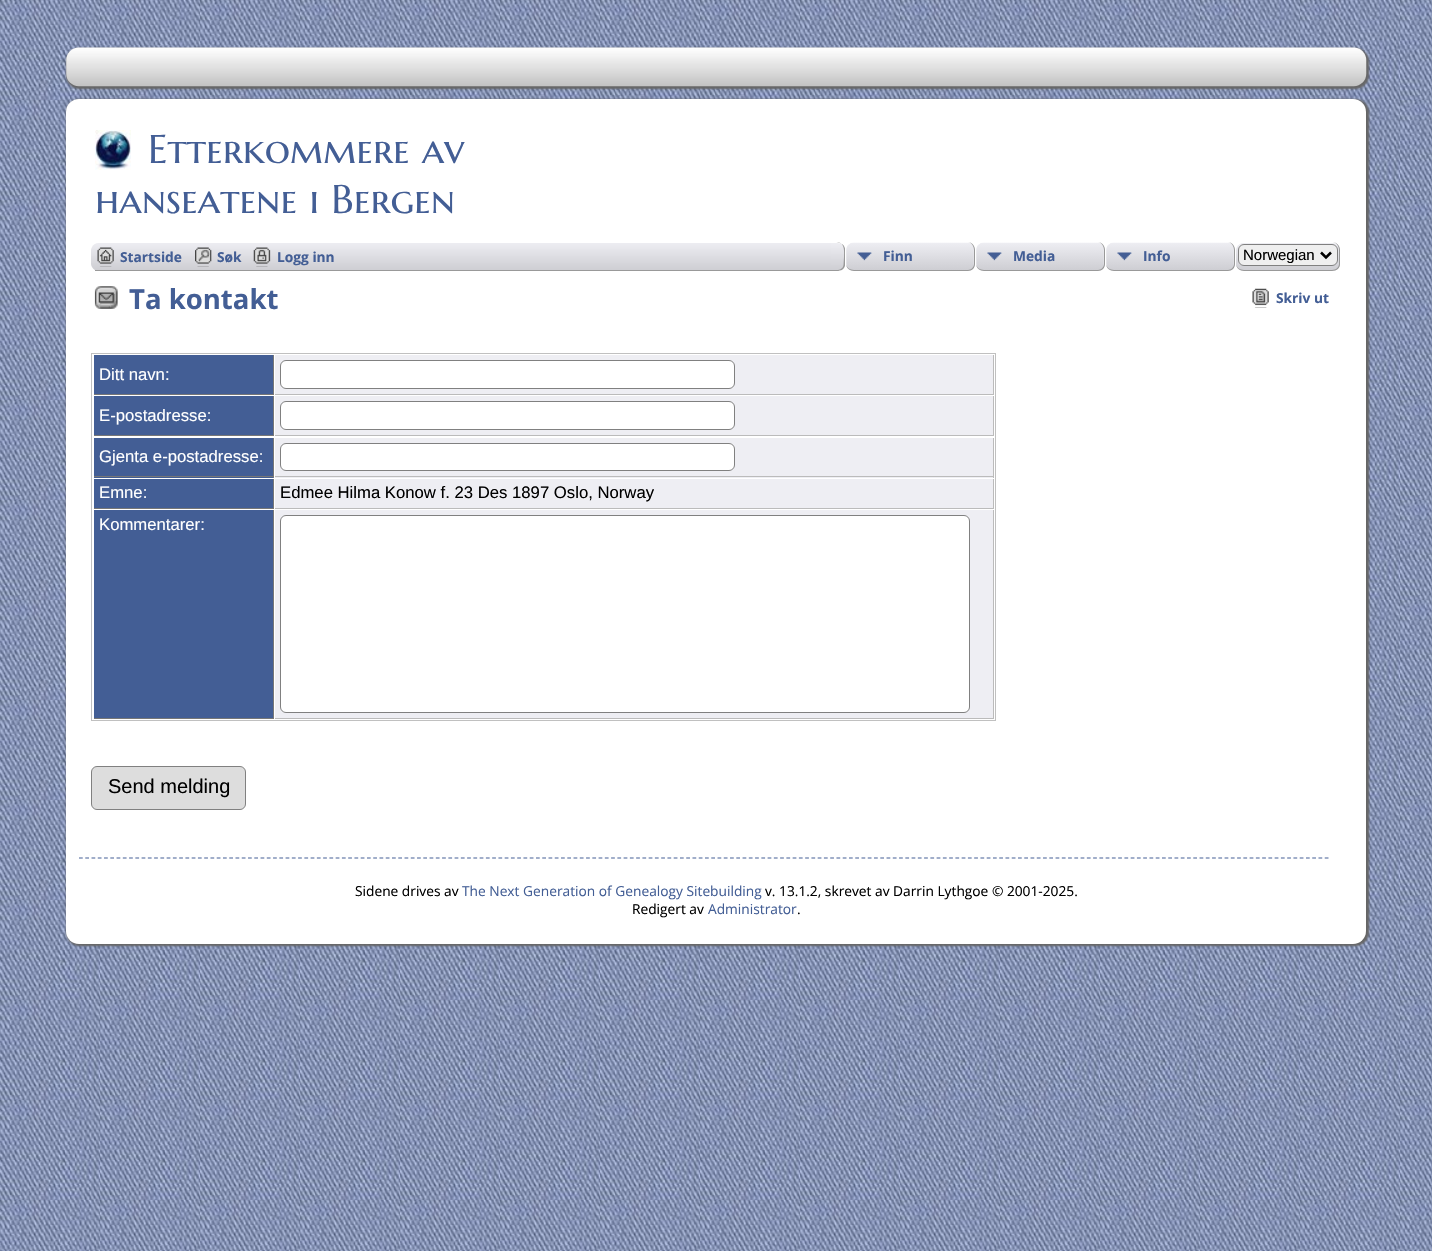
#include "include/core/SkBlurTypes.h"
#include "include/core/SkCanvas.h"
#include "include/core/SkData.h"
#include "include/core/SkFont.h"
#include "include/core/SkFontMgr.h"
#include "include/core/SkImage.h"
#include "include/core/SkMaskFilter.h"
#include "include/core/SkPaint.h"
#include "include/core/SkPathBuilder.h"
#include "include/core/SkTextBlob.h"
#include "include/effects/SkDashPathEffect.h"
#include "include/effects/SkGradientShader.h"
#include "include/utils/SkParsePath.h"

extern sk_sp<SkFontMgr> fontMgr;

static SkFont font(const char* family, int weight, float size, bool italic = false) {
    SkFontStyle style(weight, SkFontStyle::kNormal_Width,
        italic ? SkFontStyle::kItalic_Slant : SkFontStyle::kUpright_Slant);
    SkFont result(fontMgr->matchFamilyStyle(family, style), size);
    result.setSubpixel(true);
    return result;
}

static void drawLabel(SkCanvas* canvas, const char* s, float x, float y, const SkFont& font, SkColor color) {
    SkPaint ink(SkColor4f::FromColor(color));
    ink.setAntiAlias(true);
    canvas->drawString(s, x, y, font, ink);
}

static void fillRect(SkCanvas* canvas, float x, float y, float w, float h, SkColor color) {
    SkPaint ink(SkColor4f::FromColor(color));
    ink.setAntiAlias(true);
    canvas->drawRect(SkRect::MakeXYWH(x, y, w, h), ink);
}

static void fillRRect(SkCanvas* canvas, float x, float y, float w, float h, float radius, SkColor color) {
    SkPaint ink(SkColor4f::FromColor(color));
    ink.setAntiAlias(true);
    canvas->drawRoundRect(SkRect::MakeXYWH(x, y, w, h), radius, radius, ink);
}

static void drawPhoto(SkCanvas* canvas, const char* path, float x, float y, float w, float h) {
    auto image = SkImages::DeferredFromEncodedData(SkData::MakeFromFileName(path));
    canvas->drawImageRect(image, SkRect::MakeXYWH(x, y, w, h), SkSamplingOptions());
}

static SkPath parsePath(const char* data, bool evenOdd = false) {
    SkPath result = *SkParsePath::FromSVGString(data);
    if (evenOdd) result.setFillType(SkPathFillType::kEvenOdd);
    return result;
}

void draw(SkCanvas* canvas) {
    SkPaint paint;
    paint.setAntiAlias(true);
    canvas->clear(0xFFFFFFFF);
    drawPhoto(canvas, "assets/img1.png", 0, 0, 1432, 1251);
    paint.setColor(0xFF666666);
    paint.setMaskFilter(SkMaskFilter::MakeBlur(kNormal_SkBlurStyle, 1));
    canvas->drawRoundRect(SkRect::MakeXYWH(66, 48, 1303, 41), 14, 14, paint);
    paint.setMaskFilter(nullptr);
    drawPhoto(canvas, "assets/img2.png", 66, 47, 1301, 40);
    paint.setMaskFilter(SkMaskFilter::MakeBlur(kNormal_SkBlurStyle, 1));
    canvas->drawRoundRect(SkRect::MakeXYWH(66, 99, 1303, 847), 14, 14, paint);
    paint.setMaskFilter(nullptr);
    fillRRect(canvas, 66, 99, 1300, 845, 13, 0xFFFFFFFF);
    drawPhoto(canvas, "assets/img3.png", 95, 130, 36, 40);
    SkFont font1 = font("Marcellus SC", 400, 40);
    drawLabel(canvas, "Etterkommere av", 148, 163, font1, 0xFF435E95);
    drawLabel(canvas, "hanseatene i Bergen", 95, 213, font1, 0xFF435E95);
    fillRRect(canvas, 91, 243, 1250, 28, 8, 0xFFEEEEF3);
    canvas->save();
    canvas->clipPath(parsePath("M99 243H1333C1337.5 243 1341 246.5 1341 251V263C1341 267.5 1337.5 271 1333 271H99C94.5 271 91 267.5 91 263V251C91 246.5 94.5 243 99 243Z"), true);
    {
        const SkColor colors[] = {0xFFEEEEF3, 0xFFCECED3};
        const float stops[] = {0, 1};
        const SkPoint ends[] = {{716, 242}, {716, 270}};
        paint.setShader(SkGradientShader::MakeLinear(ends, colors, stops, 2, SkTileMode::kClamp));
        paint.setAlpha(255);
    }
    canvas->drawPath(parsePath("M99 243H1333C1337.5 243 1341 246.5 1341 251V270H91V251C91 246.5 94.5 243 99 243Z"), paint);
    canvas->restore();
    fillRect(canvas, 95, 270, 736, 1, 0xFF999999);
    drawPhoto(canvas, "assets/img4.png", 97, 247, 17, 20);
    SkFont font2 = font("Open Sans", 700, 13.75f);
    drawLabel(canvas, "Startside", 120, 262, font2, 0xFF435E95);
    drawPhoto(canvas, "assets/img5.png", 195, 247, 17, 20);
    drawLabel(canvas, "Søk", 217, 262, font2, 0xFF435E95);
    drawPhoto(canvas, "assets/img6.png", 253, 247, 18, 20);
    drawLabel(canvas, "Logg inn", 277, 262, font2, 0xFF435E95);
    fillRect(canvas, 833, 243, 508, 28, 0xFFFFFFFF);
    canvas->save();
    canvas->clipPath(parsePath("M831 243H837C841.5 243 845 246.5 845 251V263C845 267.5 841.5 271 837 271H831Z"), true);
    {
        const SkColor colors[] = {0xFFEEEEF3, 0xFFCECED3};
        const float stops[] = {0, 1};
        const SkPoint ends[] = {{838, 243}, {838, 270}};
        paint.setShader(SkGradientShader::MakeLinear(ends, colors, stops, 2, SkTileMode::kClamp));
        paint.setAlpha(255);
    }
    canvas->drawRect(SkRect::MakeXYWH(831, 243, 14, 27), paint);
    canvas->restore();
    paint.setShader(nullptr);
    paint.setColor(0xFF999999);
    canvas->drawPath(parsePath("M831 242.5C836.5 242.5 843.5 241.5 845 248.5V265.5C843.5 272 836.5 271 831 271ZM831 242.5H839C845 244 844 252 844 257L843.5 265C842.5 271 836 270 831 270Z", true), paint);
    fillRRect(canvas, 846, 243, 129, 28, 8, 0xFFEEEEF3);
    drawPhoto(canvas, "assets/img7.png", 846, 242, 128, 28);
    canvas->drawPath(parsePath("M854 242H968C972 242 975 246 975 250V264C975 268 972 271 968 271H854C850 271 846 268 846 264V250C846 246 850 242 854 242ZM854 242H968C971 242 974 246 974 250V264C974 267 971 270 968 270H854C850 270 846 267 846 264V250C846 246 850 242 854 242Z", true), paint);
    drawLabel(canvas, "Finn", 883, 261, font2, 0xFF435E95);
    fillRRect(canvas, 976, 243, 129, 28, 8, 0xFFEEEEF3);
    drawPhoto(canvas, "assets/img7.png", 976, 242, 128, 28);
    canvas->drawPath(parsePath("M984 242H1098C1102 242 1105 246 1105 250V264C1105 268 1102 271 1098 271H984C980 271 976 268 976 264V250C976 246 980 242 984 242ZM984 242H1098C1101 242 1104 246 1104 250V264C1104 267 1101 270 1098 270H984C980 270 976 267 976 264V250C976 246 980 242 984 242Z", true), paint);
    drawLabel(canvas, "Media", 1013, 261, font2, 0xFF435E95);
    fillRRect(canvas, 1106, 243, 129, 28, 8, 0xFFEEEEF3);
    drawPhoto(canvas, "assets/img7.png", 1106, 242, 128, 28);
    canvas->drawPath(parsePath("M1114 242H1228C1232 242 1235 246 1235 250V264C1235 268 1232 271 1228 271H1114C1110 271 1106 268 1106 264V250C1106 246 1110 242 1114 242ZM1114 242H1228C1231 242 1234 246 1234 250V264C1234 267 1231 270 1228 270H1114C1110 270 1106 267 1106 264V250C1106 246 1110 242 1114 242Z", true), paint);
    drawLabel(canvas, "Info", 1143, 261, font2, 0xFF435E95);
    fillRRect(canvas, 1236, 243, 104, 28, 8, 0xFFEEEEF3);
    canvas->save();
    canvas->clipPath(parsePath("M1244 243H1332C1336.5 243 1340 246.5 1340 251V263C1340 267.5 1336.5 271 1332 271H1244C1239.5 271 1236 267.5 1236 263V251C1236 246.5 1239.5 243 1244 243Z"), true);
    {
        const SkColor colors[] = {0xFFEEEEF3, 0xFFCECED3};
        const float stops[] = {0, 1};
        const SkPoint ends[] = {{1288, 243}, {1288, 270}};
        paint.setShader(SkGradientShader::MakeLinear(ends, colors, stops, 2, SkTileMode::kClamp));
        paint.setAlpha(255);
    }
    canvas->drawPath(parsePath("M1244 243H1332C1336.5 243 1340 246.5 1340 251V270H1236V251C1236 246.5 1239.5 243 1244 243Z"), paint);
    canvas->restore();
    paint.setShader(nullptr);
    paint.setColor(0xFF999999);
    canvas->drawPath(parsePath("M1244 242H1332C1337 242 1340 246 1340 250V264C1340 268 1337 271 1332 271H1244C1240 271 1236 268 1236 264V250C1236 246 1240 242 1244 242ZM1244 242H1332C1336 242 1339 246 1339 250V264C1339 267 1336 270 1332 270H1244C1240 270 1236 267 1236 264V250C1236 246 1240 242 1244 242Z", true), paint);
    paint.setColor(0xFFEFEFEF);
    canvas->drawRoundRect(SkRect::MakeXYWH(1238.5f, 244.5f, 99, 21), 5.5f, 5.5f, paint);
    paint.setStroke(true);
    paint.setStrokeWidth(1);
    paint.setColor(0xFF808080);
    canvas->drawRoundRect(SkRect::MakeXYWH(1238.5f, 244.5f, 99, 21), 5.5f, 5.5f, paint);
    paint.setStrokeWidth(2.5f);
    paint.setColor(0xFF000000);
    canvas->drawPath(parsePath("M1321 252.5L1326 257.5L1331 252.5"), paint);
    SkFont font3 = font("Liberation Sans", 400, 15);
    drawLabel(canvas, "Norwegian", 1243, 260, font3, 0xFF000000);
    drawPhoto(canvas, "assets/img8.png", 94, 286, 24, 23);
    SkFont font4 = font("Open Sans", 700, 27.5f);
    drawLabel(canvas, "Ta kontakt", 129, 309, font4, 0xFF435E95);
    drawPhoto(canvas, "assets/img9.png", 1252, 288, 17, 20);
    drawLabel(canvas, "Skriv ut", 1276, 303, font2, 0xFF435E95);
    paint.setStrokeWidth(1);
    paint.setColor(0xFFC0C0C0);
    canvas->drawRect(SkRect::MakeXYWH(91.5f, 353.5f, 904, 367), paint);
    fillRect(canvas, 94, 355, 179, 39, 0xFF435E95);
    fillRect(canvas, 273, 355, 1, 40, 0xFF777777);
    fillRect(canvas, 94, 394, 180, 1, 0xFF777777);
    SkFont font5 = font("Liberation Sans", 400, 16.7f);
    drawLabel(canvas, "Ditt navn:", 99, 380, font5, 0xFFFFFFFF);
    fillRect(canvas, 275, 355, 718, 39, 0xFFEEEEF3);
    fillRect(canvas, 993, 355, 1, 40, 0xFFBBBBBB);
    fillRect(canvas, 275, 394, 719, 1, 0xFFBBBBBB);
    paint.setStroke(false);
    paint.setColor(0xFFFFFFFF);
    canvas->drawRoundRect(SkRect::MakeXYWH(280.5f, 360.5f, 454, 28), 5.5f, 5.5f, paint);
    paint.setStroke(true);
    paint.setColor(0xFF808080);
    canvas->drawRoundRect(SkRect::MakeXYWH(280.5f, 360.5f, 454, 28), 5.5f, 5.5f, paint);
    fillRect(canvas, 94, 396, 179, 39, 0xFF435E95);
    fillRect(canvas, 273, 396, 1, 40, 0xFF777777);
    fillRect(canvas, 94, 435, 180, 1, 0xFF777777);
    drawLabel(canvas, "E-postadresse:", 99, 421, font5, 0xFFFFFFFF);
    fillRect(canvas, 275, 396, 718, 39, 0xFFEEEEF3);
    fillRect(canvas, 993, 396, 1, 40, 0xFFBBBBBB);
    fillRect(canvas, 275, 435, 719, 1, 0xFFBBBBBB);
    paint.setStroke(false);
    paint.setColor(0xFFFFFFFF);
    canvas->drawRoundRect(SkRect::MakeXYWH(280.5f, 401.5f, 454, 28), 5.5f, 5.5f, paint);
    paint.setStroke(true);
    paint.setColor(0xFF808080);
    canvas->drawRoundRect(SkRect::MakeXYWH(280.5f, 401.5f, 454, 28), 5.5f, 5.5f, paint);
    fillRect(canvas, 94, 438, 179, 40, 0xFF435E95);
    fillRect(canvas, 273, 438, 1, 40, 0xFF777777);
    fillRect(canvas, 94, 476, 180, 1, 0xFF777777);
    drawLabel(canvas, "Gjenta e-postadresse:", 99, 462, font5, 0xFFFFFFFF);
    fillRect(canvas, 275, 438, 718, 40, 0xFFEEEEF3);
    fillRect(canvas, 993, 438, 1, 40, 0xFFBBBBBB);
    fillRect(canvas, 275, 476, 719, 1, 0xFFBBBBBB);
    paint.setStroke(false);
    paint.setColor(0xFFFFFFFF);
    canvas->drawRoundRect(SkRect::MakeXYWH(280.5f, 443.5f, 454, 27), 5.5f, 5.5f, paint);
    paint.setStroke(true);
    paint.setColor(0xFF808080);
    canvas->drawRoundRect(SkRect::MakeXYWH(280.5f, 443.5f, 454, 27), 5.5f, 5.5f, paint);
    fillRect(canvas, 94, 479, 179, 29, 0xFF435E95);
    fillRect(canvas, 273, 479, 1, 30, 0xFF777777);
    fillRect(canvas, 94, 508, 180, 1, 0xFF777777);
    drawLabel(canvas, "Emne:", 99, 498, font5, 0xFFFFFFFF);
    fillRect(canvas, 275, 479, 718, 29, 0xFFEEEEF3);
    fillRect(canvas, 993, 479, 1, 30, 0xFFBBBBBB);
    fillRect(canvas, 275, 508, 719, 1, 0xFFBBBBBB);
    drawLabel(canvas, "Edmee Hilma Konow f. 23 Des 1897 Oslo, Norway", 280, 498, font5, 0xFF000000);
    fillRect(canvas, 94, 510, 179, 208, 0xFF435E95);
    fillRect(canvas, 273, 510, 1, 209, 0xFF777777);
    fillRect(canvas, 94, 718, 180, 1, 0xFF777777);
    drawLabel(canvas, "Kommentarer:", 99, 530, font5, 0xFFFFFFFF);
    fillRect(canvas, 275, 510, 718, 208, 0xFFEEEEF3);
    fillRect(canvas, 993, 510, 1, 209, 0xFFBBBBBB);
    fillRect(canvas, 275, 718, 719, 1, 0xFFBBBBBB);
    paint.setStroke(false);
    paint.setColor(0xFFFFFFFF);
    canvas->drawRoundRect(SkRect::MakeXYWH(280.5f, 515.5f, 689, 197), 5.5f, 5.5f, paint);
    paint.setStroke(true);
    paint.setColor(0xFF808080);
    canvas->drawRoundRect(SkRect::MakeXYWH(280.5f, 515.5f, 689, 197), 5.5f, 5.5f, paint);
    paint.setStroke(false);
    paint.setColor(0xFFDDDDDD);
    canvas->drawRoundRect(SkRect::MakeXYWH(91.5f, 766.5f, 154, 43), 5.5f, 5.5f, paint);
    paint.setStroke(true);
    paint.setColor(0xFF808080);
    canvas->drawRoundRect(SkRect::MakeXYWH(91.5f, 766.5f, 154, 43), 5.5f, 5.5f, paint);
    SkFont font6 = font("Liberation Sans", 400, 20);
    drawLabel(canvas, "Send melding", 108, 793, font6, 0xFF000000);
    paint.setStrokeWidth(1.2f);
    paint.setColor(0xFF435E95);
    paint.setPathEffect(SkDashPathEffect::Make({{3.75f, 2.51f}}, 0));
    canvas->drawPath(parsePath("M79 858H1329"), paint);
    paint.setPathEffect(nullptr);
    SkFont font7 = font("Open Sans", 400, 13.75f);
    drawLabel(canvas, "Sidene drives av", 355, 896, font7, 0xFF000000);
    drawLabel(canvas, "The Next Generation of Genealogy Sitebuilding", 462, 896, font7, 0xFF435E95);
    drawLabel(canvas, "v. 13.1.2, skrevet av Darrin Lythgoe © 2001-2025.", 765, 896, font7, 0xFF000000);
    drawLabel(canvas, "Redigert av", 632, 914, font7, 0xFF000000);
    drawLabel(canvas, "Administrator", 708, 914, font7, 0xFF435E95);
    drawLabel(canvas, ".", 797, 914, font7, 0xFF000000);
}
